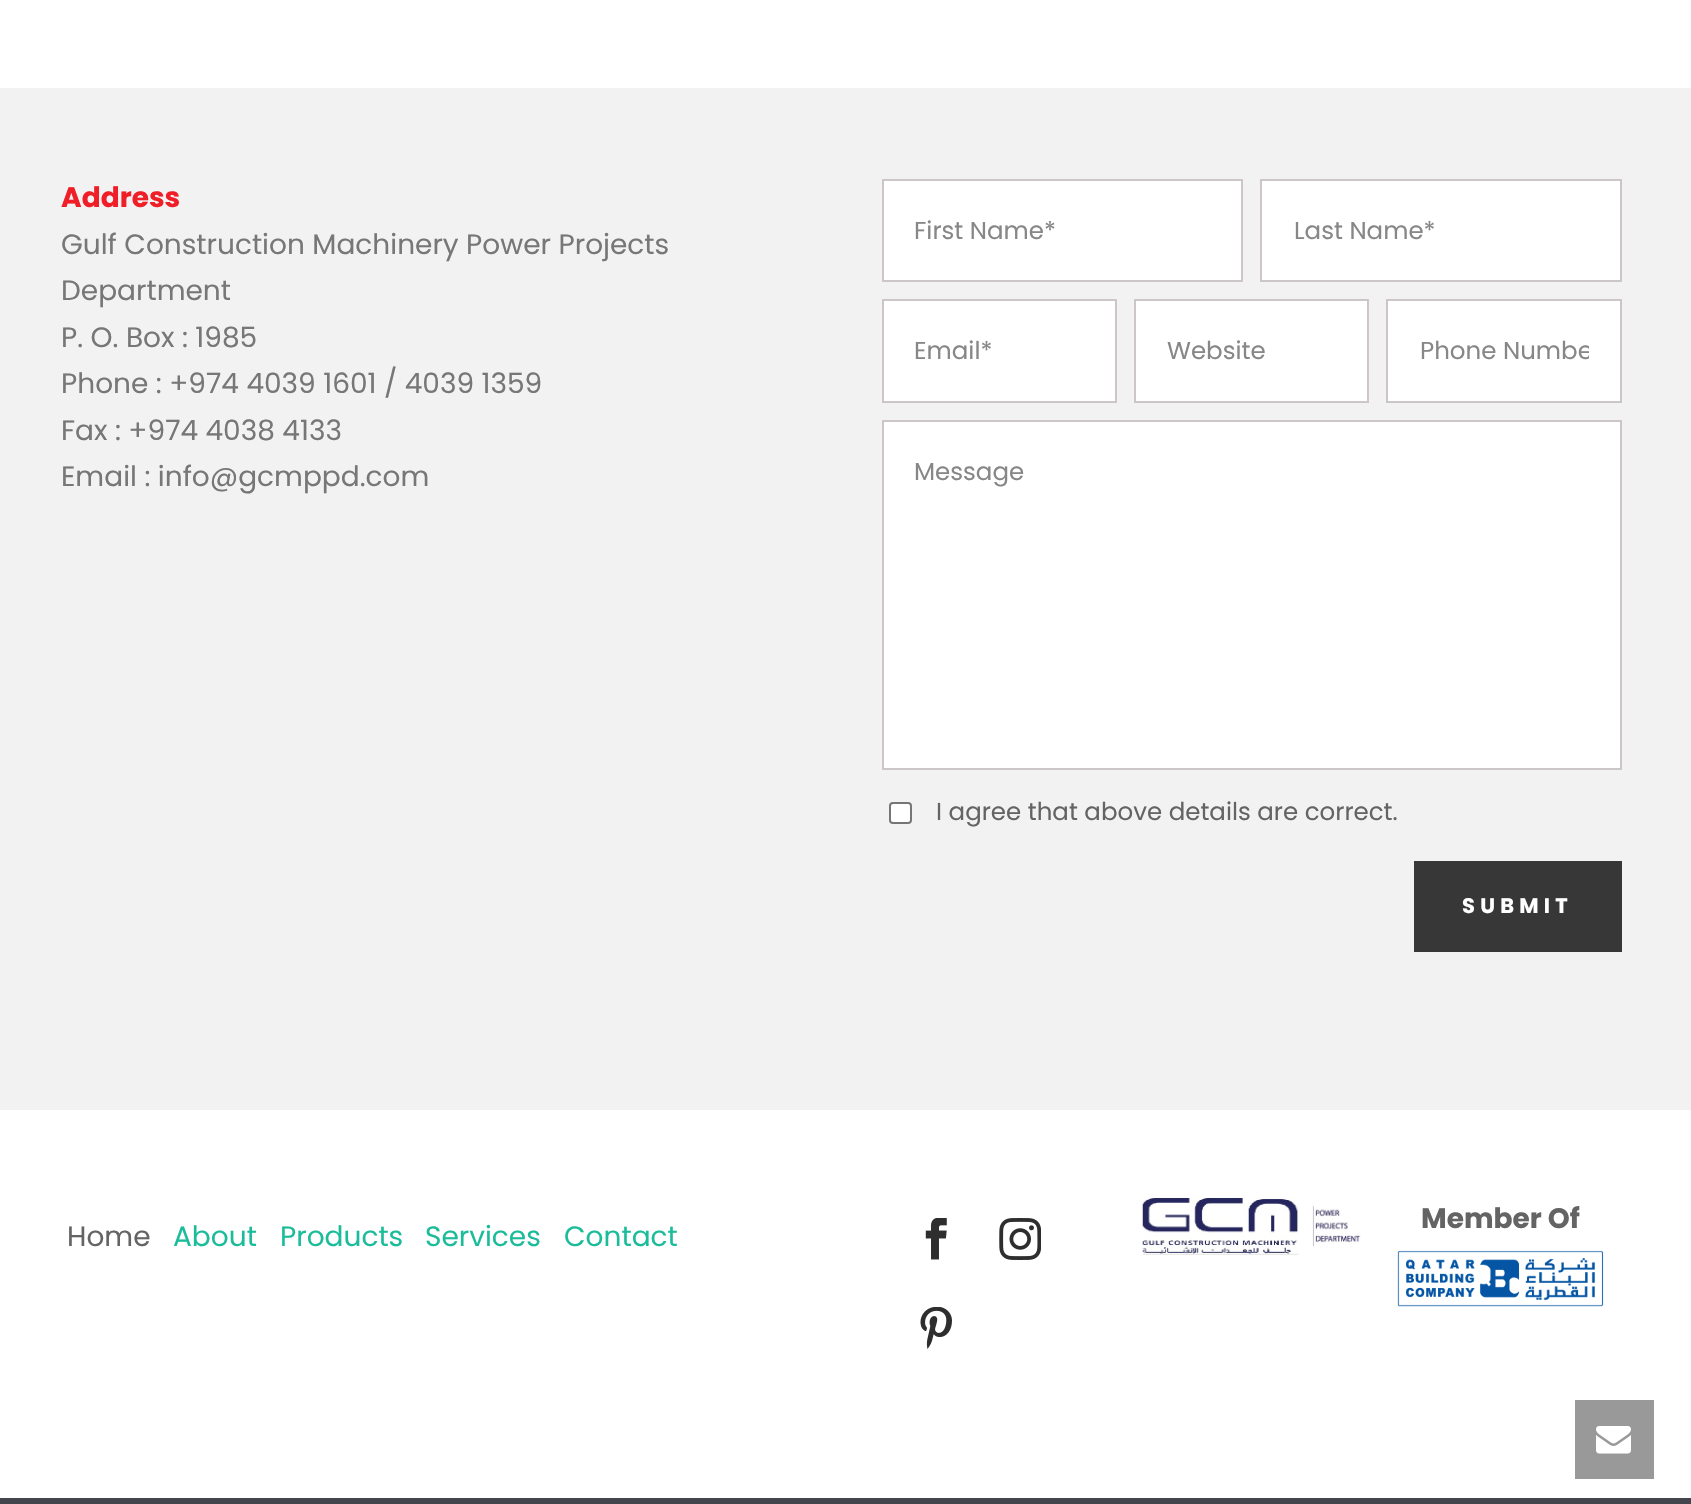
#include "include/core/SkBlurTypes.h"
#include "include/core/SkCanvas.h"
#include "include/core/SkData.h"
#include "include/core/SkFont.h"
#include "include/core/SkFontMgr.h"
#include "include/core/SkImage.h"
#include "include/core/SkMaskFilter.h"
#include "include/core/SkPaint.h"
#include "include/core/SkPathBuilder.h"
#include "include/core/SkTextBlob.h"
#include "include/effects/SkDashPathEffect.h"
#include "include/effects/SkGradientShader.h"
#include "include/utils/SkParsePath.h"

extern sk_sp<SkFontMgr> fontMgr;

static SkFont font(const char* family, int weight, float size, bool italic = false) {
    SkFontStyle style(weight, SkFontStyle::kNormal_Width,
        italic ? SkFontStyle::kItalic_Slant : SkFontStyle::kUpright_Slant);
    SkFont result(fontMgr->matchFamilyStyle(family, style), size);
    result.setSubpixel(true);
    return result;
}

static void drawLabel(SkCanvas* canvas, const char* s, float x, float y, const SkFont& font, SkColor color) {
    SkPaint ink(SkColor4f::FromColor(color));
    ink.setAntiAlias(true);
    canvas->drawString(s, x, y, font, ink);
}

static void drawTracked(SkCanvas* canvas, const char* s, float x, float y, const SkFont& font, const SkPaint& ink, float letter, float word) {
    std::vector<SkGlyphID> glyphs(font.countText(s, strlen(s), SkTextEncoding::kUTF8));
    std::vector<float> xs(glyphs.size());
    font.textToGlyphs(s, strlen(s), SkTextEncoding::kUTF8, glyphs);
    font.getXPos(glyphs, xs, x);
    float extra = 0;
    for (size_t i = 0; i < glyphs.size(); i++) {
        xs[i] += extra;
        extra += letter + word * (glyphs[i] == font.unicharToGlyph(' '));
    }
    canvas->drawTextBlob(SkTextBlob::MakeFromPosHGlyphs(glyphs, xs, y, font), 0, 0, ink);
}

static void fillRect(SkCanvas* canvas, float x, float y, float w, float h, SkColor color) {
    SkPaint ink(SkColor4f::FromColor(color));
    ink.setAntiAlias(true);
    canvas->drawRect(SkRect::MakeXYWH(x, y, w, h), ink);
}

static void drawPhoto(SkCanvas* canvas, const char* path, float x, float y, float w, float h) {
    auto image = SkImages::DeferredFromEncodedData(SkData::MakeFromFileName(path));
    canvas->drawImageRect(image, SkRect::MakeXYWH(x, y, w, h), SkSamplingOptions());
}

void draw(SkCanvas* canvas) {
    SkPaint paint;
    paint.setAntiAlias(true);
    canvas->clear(0xFFFFFFFF);
    fillRect(canvas, 0, 88, 1691, 1022, 0xFFF2F2F2);
    SkFont font1 = font("Poppins", 700, 28);
    drawLabel(canvas, "Address", 61, 207, font1, 0xFFEF1E27);
    SkFont font2 = font("Poppins", 400, 28);
    drawLabel(canvas, "Gulf Construction Machinery Power Projects", 61, 254, font2, 0xFF777777);
    drawLabel(canvas, "Department", 61, 300, font2, 0xFF777777);
    drawLabel(canvas, "P. O. Box : 1985", 61, 347, font2, 0xFF777777);
    drawLabel(canvas, "Phone : +974 4039 1601 / 4039 1359", 61, 393, font2, 0xFF777777);
    drawLabel(canvas, "Fax : +974 4038 4133", 61, 440, font2, 0xFF777777);
    drawLabel(canvas, "Email : info@gcmppd.com", 61, 486, font2, 0xFF777777);
    paint.setColor(0xFFFFFFFF);
    canvas->drawRect(SkRect::MakeXYWH(883, 180, 359, 101), paint);
    paint.setStroke(true);
    paint.setStrokeWidth(2);
    paint.setColor(0xFFCCC6C6);
    canvas->drawRect(SkRect::MakeXYWH(883, 180, 359, 101), paint);
    SkFont font3 = font("Poppins", 400, 24.5f);
    drawLabel(canvas, "First Name*", 914, 239, font3, 0xFF878787);
    paint.setStroke(false);
    paint.setColor(0xFFFFFFFF);
    canvas->drawRect(SkRect::MakeXYWH(1261, 180, 360, 101), paint);
    paint.setStroke(true);
    paint.setColor(0xFFCCC6C6);
    canvas->drawRect(SkRect::MakeXYWH(1261, 180, 360, 101), paint);
    drawLabel(canvas, "Last Name*", 1294, 239, font3, 0xFF878787);
    paint.setStroke(false);
    paint.setColor(0xFFFFFFFF);
    canvas->drawRect(SkRect::MakeXYWH(883, 300, 233, 102), paint);
    paint.setStroke(true);
    paint.setColor(0xFFCCC6C6);
    canvas->drawRect(SkRect::MakeXYWH(883, 300, 233, 102), paint);
    drawLabel(canvas, "Email*", 914, 359, font3, 0xFF878787);
    paint.setStroke(false);
    paint.setColor(0xFFFFFFFF);
    canvas->drawRect(SkRect::MakeXYWH(1135, 300, 233, 102), paint);
    paint.setStroke(true);
    paint.setColor(0xFFCCC6C6);
    canvas->drawRect(SkRect::MakeXYWH(1135, 300, 233, 102), paint);
    drawLabel(canvas, "Website", 1167, 359, font3, 0xFF878787);
    paint.setStroke(false);
    paint.setColor(0xFFFFFFFF);
    canvas->drawRect(SkRect::MakeXYWH(1387, 300, 234, 102), paint);
    paint.setStroke(true);
    paint.setColor(0xFFCCC6C6);
    canvas->drawRect(SkRect::MakeXYWH(1387, 300, 234, 102), paint);
    canvas->save();
    canvas->clipRect(SkRect::MakeXYWH(1419, 333, 170, 36));
    drawLabel(canvas, "Phone Numbe", 1420, 359, font3, 0xFF878787);
    canvas->restore();
    paint.setStroke(false);
    paint.setColor(0xFFFFFFFF);
    canvas->drawRect(SkRect::MakeXYWH(883, 421, 738, 348), paint);
    paint.setStroke(true);
    paint.setColor(0xFFCCC6C6);
    canvas->drawRect(SkRect::MakeXYWH(883, 421, 738, 348), paint);
    drawLabel(canvas, "Message", 914, 480, font3, 0xFF878787);
    paint.setStroke(false);
    paint.setColor(0xFFFFFFFF);
    canvas->drawRoundRect(SkRect::MakeXYWH(890, 803, 21, 20), 3, 3, paint);
    paint.setStroke(true);
    paint.setColor(0xFF767676);
    canvas->drawRoundRect(SkRect::MakeXYWH(890, 803, 21, 20), 3, 3, paint);
    drawLabel(canvas, "I agree that above details are correct.", 936, 820, font3, 0xFF646464);
    fillRect(canvas, 1414, 861, 208, 91, 0xFF373737);
    SkFont font4 = font("Poppins", 700, 21);
    paint.setStroke(false);
    paint.setColor(0xFFFFFFFF);
    drawTracked(canvas, "SUBMIT", 1462, 913, font4, paint, 5.25f, 0);
    drawPhoto(canvas, "assets/img1.png", 925, 1218, 22, 42);
    drawPhoto(canvas, "assets/img2.png", 999, 1218, 42, 42);
    drawPhoto(canvas, "assets/img3.png", 920, 1307, 32, 42);
    drawPhoto(canvas, "assets/img4.png", 1142, 1197, 219, 58);
    drawLabel(canvas, "Member Of", 1421, 1228, font1, 0xFF646464);
    drawPhoto(canvas, "assets/img5.png", 1397, 1250, 207, 57);
    drawLabel(canvas, "Home", 67, 1246, font2, 0xFF646464);
    drawLabel(canvas, "About", 173, 1246, font2, 0xFF1BBC9A);
    drawLabel(canvas, "Products", 280, 1246, font2, 0xFF1BBC9A);
    drawLabel(canvas, "Services", 425, 1246, font2, 0xFF1BBC9A);
    drawLabel(canvas, "Contact", 564, 1246, font2, 0xFF1BBC9A);
    fillRect(canvas, 0, 1498, 1691, 6, 0xFF43474D);
    fillRect(canvas, 1575, 1400, 79, 79, 0xFF999999);
    drawPhoto(canvas, "assets/img6.png", 1596, 1426, 35, 28);
}
